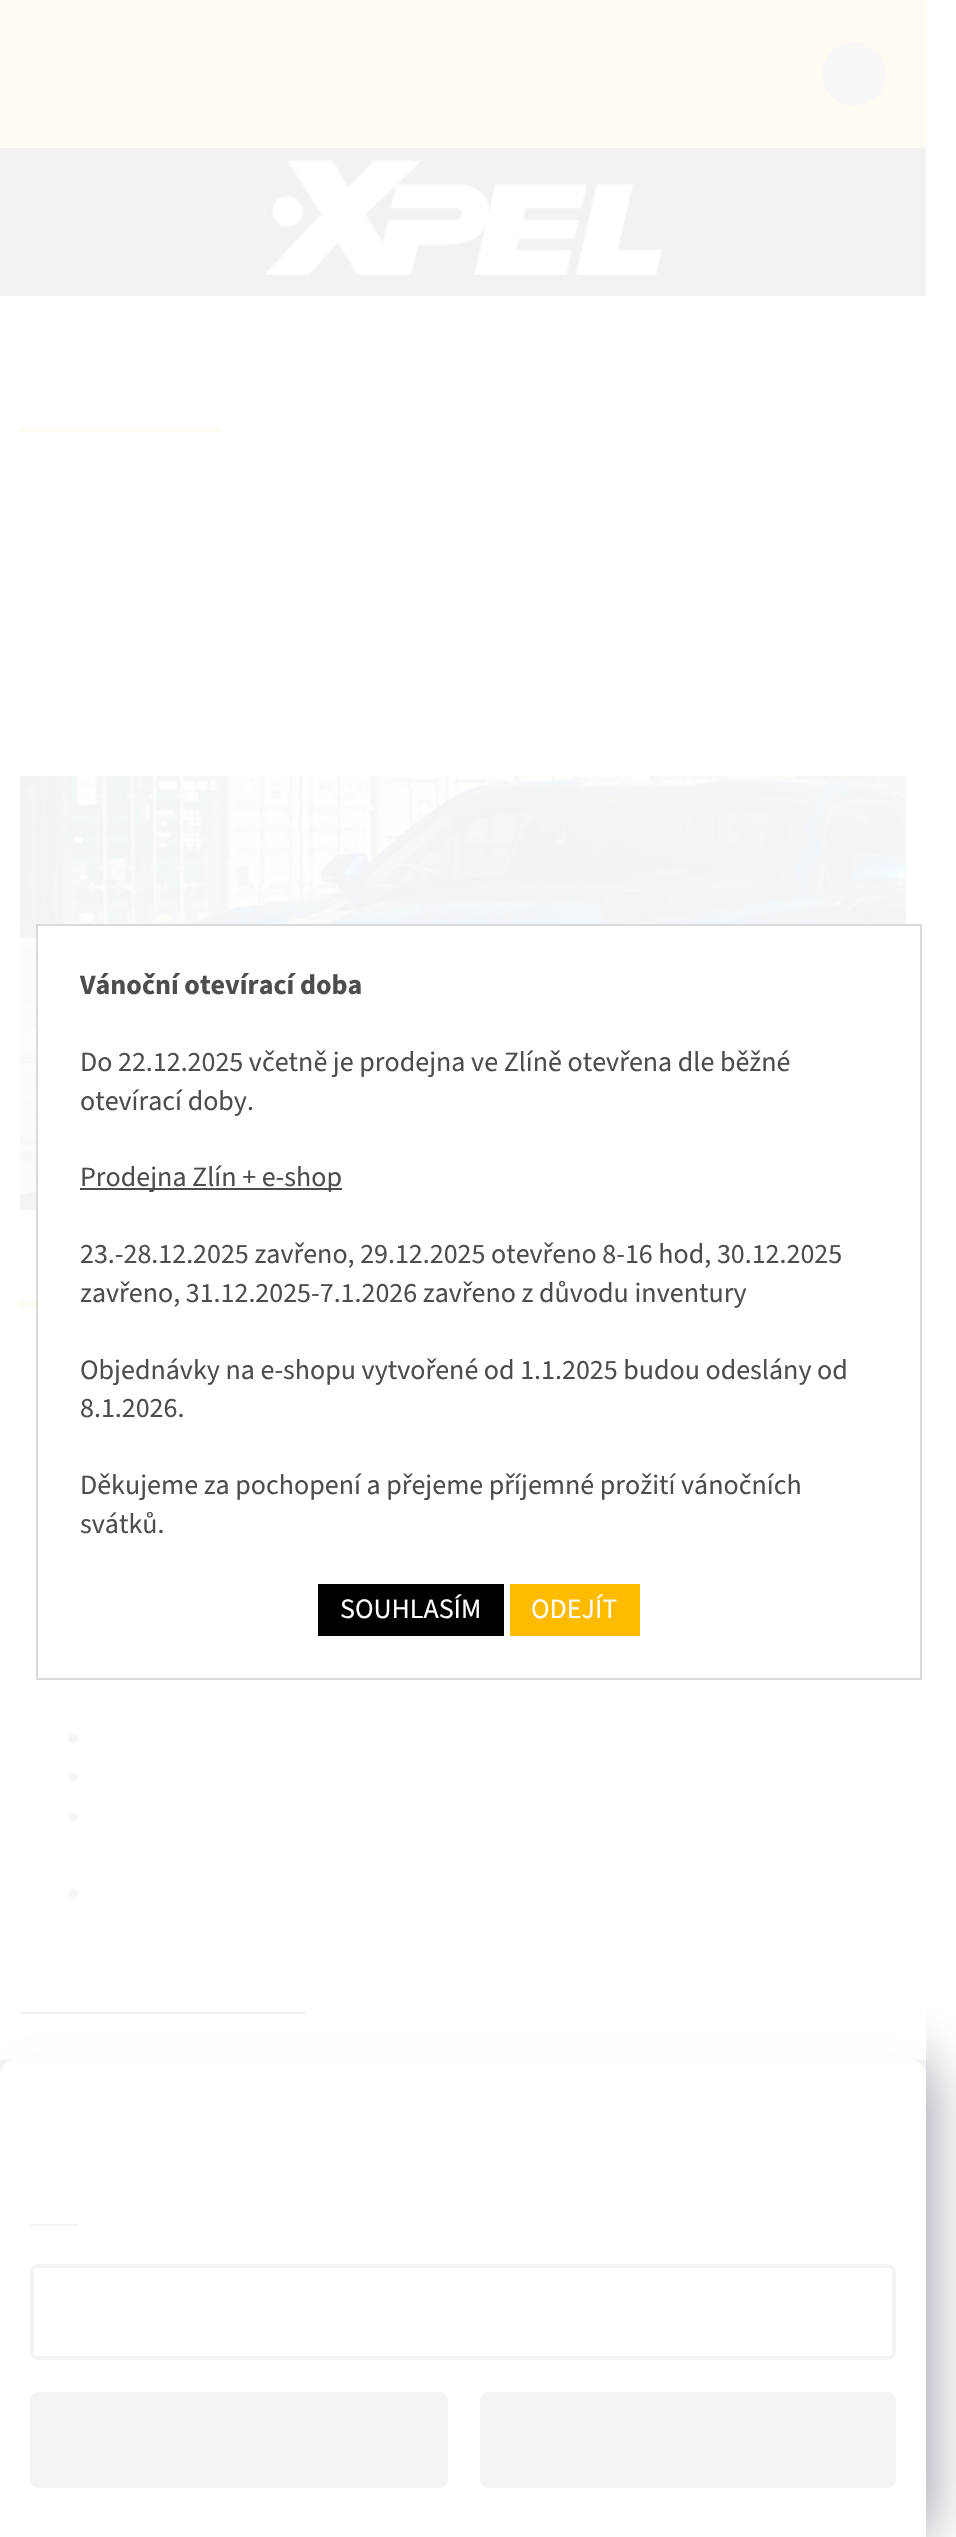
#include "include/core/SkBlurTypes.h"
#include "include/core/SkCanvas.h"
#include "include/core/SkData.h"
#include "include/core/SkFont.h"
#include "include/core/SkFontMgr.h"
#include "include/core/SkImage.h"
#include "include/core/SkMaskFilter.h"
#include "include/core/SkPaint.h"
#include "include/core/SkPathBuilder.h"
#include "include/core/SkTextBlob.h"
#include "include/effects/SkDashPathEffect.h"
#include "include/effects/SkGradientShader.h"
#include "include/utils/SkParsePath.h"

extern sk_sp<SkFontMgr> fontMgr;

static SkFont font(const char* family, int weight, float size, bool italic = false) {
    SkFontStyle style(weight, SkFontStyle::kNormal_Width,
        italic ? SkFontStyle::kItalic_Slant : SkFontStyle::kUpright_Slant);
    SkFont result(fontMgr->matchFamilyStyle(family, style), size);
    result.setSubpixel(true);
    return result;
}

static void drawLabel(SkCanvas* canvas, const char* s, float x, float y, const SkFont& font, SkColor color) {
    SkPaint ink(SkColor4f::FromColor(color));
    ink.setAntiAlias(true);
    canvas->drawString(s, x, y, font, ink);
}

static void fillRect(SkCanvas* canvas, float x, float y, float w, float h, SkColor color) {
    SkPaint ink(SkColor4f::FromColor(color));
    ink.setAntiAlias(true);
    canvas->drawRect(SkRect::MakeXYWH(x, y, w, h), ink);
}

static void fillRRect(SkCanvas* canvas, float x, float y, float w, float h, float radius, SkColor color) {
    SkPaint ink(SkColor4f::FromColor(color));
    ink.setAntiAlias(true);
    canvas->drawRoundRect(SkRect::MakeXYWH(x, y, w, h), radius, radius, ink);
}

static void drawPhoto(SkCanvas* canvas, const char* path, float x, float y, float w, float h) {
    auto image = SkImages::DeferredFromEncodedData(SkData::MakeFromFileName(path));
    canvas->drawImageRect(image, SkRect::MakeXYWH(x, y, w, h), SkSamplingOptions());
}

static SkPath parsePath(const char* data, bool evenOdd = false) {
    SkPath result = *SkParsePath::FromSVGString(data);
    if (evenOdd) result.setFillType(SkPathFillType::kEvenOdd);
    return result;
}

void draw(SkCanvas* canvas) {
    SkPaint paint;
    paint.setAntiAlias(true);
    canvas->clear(0xFFFFFFFF);
    fillRect(canvas, 0, 0, 926, 148, 0xFFF5AF05);
    paint.setColor(0xFF666666);
    canvas->drawCircle(854, 74, 32, paint);
    fillRect(canvas, 0, 148, 926, 148, 0xFF000000);
    drawPhoto(canvas, "assets/img1.png", 264, 160, 398, 118);
    fillRect(canvas, 20, 428, 200, 4, 0xFFF5AF05);
    drawPhoto(canvas, "assets/img2.png", 20, 776, 886, 434);
    fillRect(canvas, 20, 1302, 16, 4, 0xFFF5AF05);
    paint.setColor(0xFF4D4D4D);
    canvas->drawCircle(73, 1739, 5, paint);
    canvas->drawCircle(73, 1777, 5, paint);
    canvas->drawCircle(73, 1817, 5, paint);
    canvas->drawCircle(73, 1893, 5, paint);
    fillRect(canvas, 20, 2012, 286, 2, 0xFF000000);
    fillRect(canvas, 0, 2060, 926, 16, 0xFF000000);
    fillRect(canvas, 0, 2058, 926, 2, 0xFFDADADA);
    paint.setColor(0x801B1939);
    paint.setMaskFilter(SkMaskFilter::MakeBlur(kNormal_SkBlurStyle, 30));
    canvas->drawRoundRect(SkRect::MakeXYWH(0, 2060, 926, 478), 16, 16, paint);
    paint.setMaskFilter(nullptr);
    paint.setColor(0xFFF8FAFB);
    canvas->drawPath(parsePath("M16 2060H910C919 2060 926 2067 926 2076V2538H0V2076C0 2067 7 2060 16 2060Z"), paint);
    fillRect(canvas, 30, 2224, 48, 2, 0xFF252525);
    paint.setStroke(true);
    paint.setStrokeWidth(4);
    paint.setColor(0xFF252525);
    canvas->drawRoundRect(SkRect::MakeXYWH(32, 2266, 862, 92), 6, 6, paint);
    fillRRect(canvas, 30, 2392, 418, 96, 8, 0xFF252525);
    fillRRect(canvas, 480, 2392, 416, 96, 8, 0xFF252525);
    fillRect(canvas, 0, 0, 926, 2537, 0xF2FFFFFF);
    fillRect(canvas, 38, 926, 868, 284, 0xFFFFFFFF);
    paint.setStrokeWidth(2);
    paint.setColor(0xFFDADADA);
    canvas->drawRect(SkRect::MakeXYWH(37, 925, 884, 754), paint);
    SkFont font1 = font("Source Sans 3", 700, 28);
    drawLabel(canvas, "Vánoční otevírací doba", 80, 994, font1, 0xFF4D4D4D);
    SkFont font2 = font("Source Sans 3", 400, 28);
    drawLabel(canvas, "Do 22.12.2025 včetně je prodejna ve Zlíně otevřena dle běžné", 80, 1071, font2, 0xFF4D4D4D);
    drawLabel(canvas, "otevírací doby.", 80, 1110, font2, 0xFF4D4D4D);
    fillRect(canvas, 80, 1188, 262, 2, 0xFF4D4D4D);
    drawLabel(canvas, "Prodejna Zlín + e-shop", 80, 1186, font2, 0xFF4D4D4D);
    drawLabel(canvas, "23.-28.12.2025 zavřeno, 29.12.2025 otevřeno 8-16 hod, 30.12.2025", 80, 1263, font2, 0xFF4D4D4D);
    drawLabel(canvas, "zavřeno, 31.12.2025-7.1.2026 zavřeno z důvodu inventury", 80, 1302, font2, 0xFF4D4D4D);
    drawLabel(canvas, "Objednávky na e-shopu vytvořené od 1.1.2025 budou odeslány od", 80, 1379, font2, 0xFF4D4D4D);
    drawLabel(canvas, "8.1.2026.", 80, 1417, font2, 0xFF4D4D4D);
    drawLabel(canvas, "Děkujeme za pochopení a přejeme příjemné prožití vánočních", 80, 1494, font2, 0xFF4D4D4D);
    drawLabel(canvas, "svátků.", 80, 1533, font2, 0xFF4D4D4D);
    fillRect(canvas, 318, 1584, 186, 52, 0xFF000000);
    drawLabel(canvas, "SOUHLASÍM", 340, 1618, font2, 0xFFFFFFFF);
    fillRect(canvas, 510, 1584, 130, 52, 0xFFFFBB00);
    drawLabel(canvas, "ODEJÍT", 531, 1618, font2, 0xFFFFFFFF);
}
